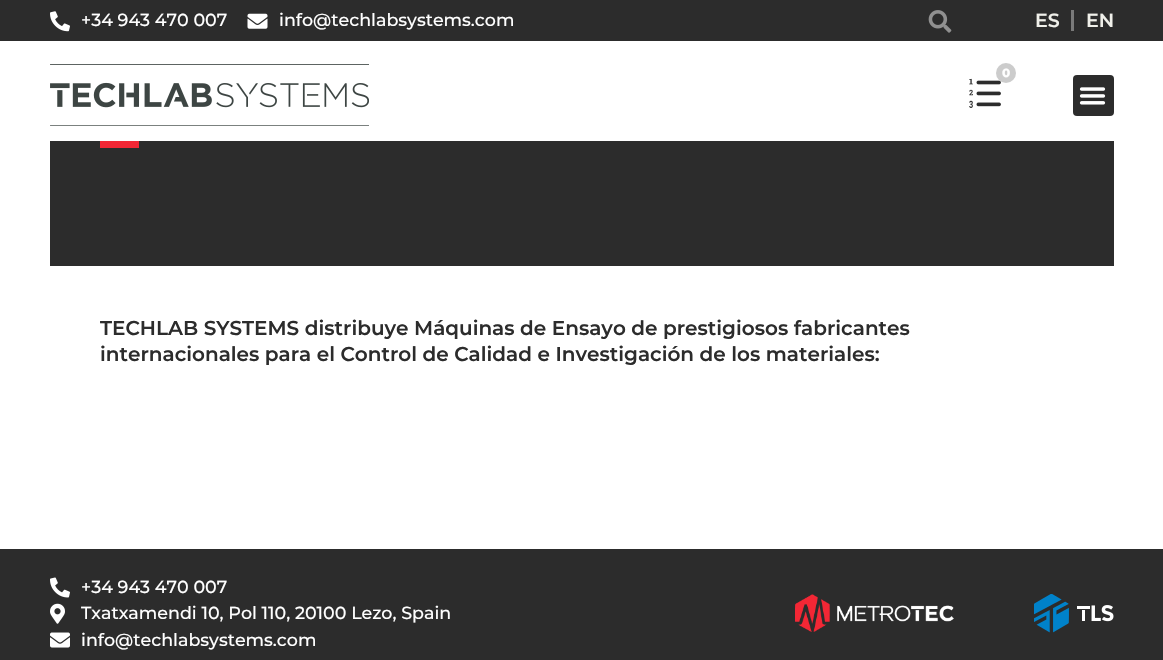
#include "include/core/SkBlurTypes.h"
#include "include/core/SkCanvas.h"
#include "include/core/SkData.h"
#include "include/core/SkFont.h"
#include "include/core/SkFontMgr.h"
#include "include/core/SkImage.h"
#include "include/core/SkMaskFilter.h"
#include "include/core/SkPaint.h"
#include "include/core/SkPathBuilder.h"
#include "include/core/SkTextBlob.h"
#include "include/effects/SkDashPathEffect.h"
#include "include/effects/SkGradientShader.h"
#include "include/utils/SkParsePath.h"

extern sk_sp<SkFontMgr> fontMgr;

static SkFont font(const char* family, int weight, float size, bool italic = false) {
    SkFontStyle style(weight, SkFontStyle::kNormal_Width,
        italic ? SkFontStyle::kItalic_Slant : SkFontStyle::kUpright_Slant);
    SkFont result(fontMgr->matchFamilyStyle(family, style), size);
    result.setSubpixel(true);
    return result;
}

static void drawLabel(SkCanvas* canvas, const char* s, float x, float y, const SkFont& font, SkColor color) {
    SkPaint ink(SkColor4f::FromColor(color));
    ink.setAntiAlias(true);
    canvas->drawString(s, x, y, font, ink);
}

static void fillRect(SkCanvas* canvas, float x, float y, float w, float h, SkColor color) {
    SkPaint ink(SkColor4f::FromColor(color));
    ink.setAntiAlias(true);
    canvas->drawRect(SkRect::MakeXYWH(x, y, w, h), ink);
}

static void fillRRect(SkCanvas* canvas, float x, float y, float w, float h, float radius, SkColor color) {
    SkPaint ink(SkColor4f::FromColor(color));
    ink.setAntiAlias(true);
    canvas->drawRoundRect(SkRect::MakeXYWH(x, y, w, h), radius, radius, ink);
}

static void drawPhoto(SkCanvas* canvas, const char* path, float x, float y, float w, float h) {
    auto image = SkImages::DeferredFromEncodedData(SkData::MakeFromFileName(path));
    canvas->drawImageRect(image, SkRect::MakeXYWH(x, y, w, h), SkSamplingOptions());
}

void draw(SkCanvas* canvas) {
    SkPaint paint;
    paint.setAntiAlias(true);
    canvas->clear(0xFFFFFFFF);
    fillRect(canvas, 0, 0, 1163, 41, 0xFF2C2C2C);
    drawPhoto(canvas, "assets/img1.png", 50, 11, 20, 21);
    SkFont font1 = font("Montserrat", 500, 17.5f);
    drawLabel(canvas, "+34 943 470 007", 81, 26, font1, 0xFFFFFFFF);
    drawPhoto(canvas, "assets/img2.png", 247, 13, 21, 16);
    drawLabel(canvas, "info@techlabsystems.com", 279, 26, font1, 0xFFFFFFFF);
    drawPhoto(canvas, "assets/img3.png", 928, 10, 24, 23);
    SkFont font2 = font("Montserrat", 600, 19);
    drawLabel(canvas, "ES", 1035, 27, font2, 0xFFF0F0EA);
    fillRect(canvas, 1071, 10, 3, 21, 0xFF7A7A7A);
    drawLabel(canvas, "EN", 1086, 27, font2, 0xFFF0F0EA);
    drawPhoto(canvas, "assets/img4.png", 50, 64, 319, 62);
    drawPhoto(canvas, "assets/img5.png", 969, 78, 32, 30);
    paint.setColor(0xFFCCCCCC);
    canvas->drawCircle(1006, 73, 10, paint);
    SkFont font3 = font("Montserrat", 800, 12);
    drawLabel(canvas, "0", 1002, 77, font3, 0xFFFFFFFF);
    fillRRect(canvas, 1073, 75, 41, 41, 4, 0xFF2C2C2C);
    drawPhoto(canvas, "assets/img6.png", 1079, 87, 27, 18);
    fillRect(canvas, 50, 141, 1064, 125, 0xFF2C2C2C);
    fillRect(canvas, 100, 141, 39, 7, 0xFFF32735);
    SkFont font4 = font("Montserrat", 600, 20);
    drawLabel(canvas, "TECHLAB SYSTEMS distribuye Máquinas de Ensayo de prestigiosos fabricantes", 100, 335, font4, 0xFF2C2C2C);
    drawLabel(canvas, "internacionales para el Control de Calidad e Investigación de los materiales:", 100, 361, font4, 0xFF2C2C2C);
    fillRect(canvas, 0, 549, 1163, 111, 0xFF2C2C2C);
    drawPhoto(canvas, "assets/img7.png", 50, 577, 20, 21);
    drawLabel(canvas, "+34 943 470 007", 81, 593, font1, 0xFFFFFFFF);
    drawPhoto(canvas, "assets/img8.png", 50, 603, 15, 21);
    drawLabel(canvas, "Txatxamendi 10, Pol 110, 20100 Lezo, Spain", 81, 619, font1, 0xFFFFFFFF);
    drawPhoto(canvas, "assets/img9.png", 50, 632, 20, 16);
    drawLabel(canvas, "info@techlabsystems.com", 81, 646, font1, 0xFFFFFFFF);
    drawPhoto(canvas, "assets/img10.png", 795, 594, 159, 38);
    drawPhoto(canvas, "assets/img11.png", 1034, 594, 80, 39);
}
